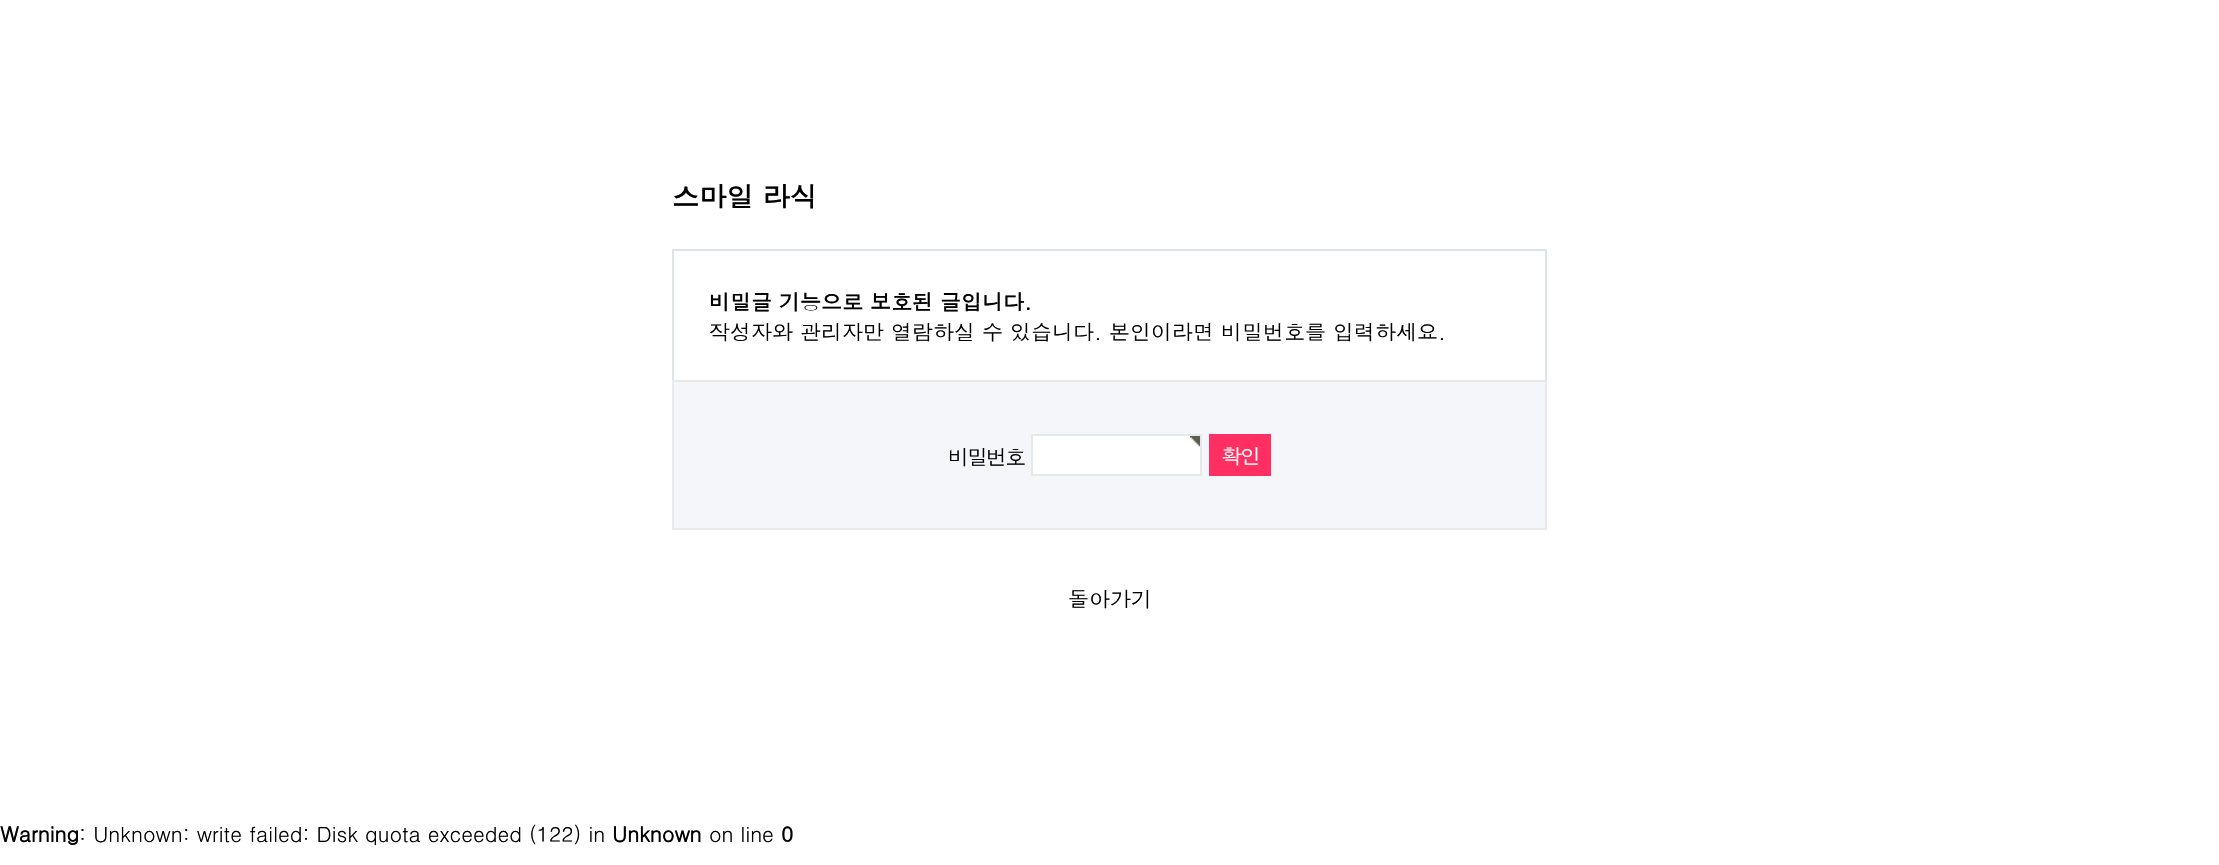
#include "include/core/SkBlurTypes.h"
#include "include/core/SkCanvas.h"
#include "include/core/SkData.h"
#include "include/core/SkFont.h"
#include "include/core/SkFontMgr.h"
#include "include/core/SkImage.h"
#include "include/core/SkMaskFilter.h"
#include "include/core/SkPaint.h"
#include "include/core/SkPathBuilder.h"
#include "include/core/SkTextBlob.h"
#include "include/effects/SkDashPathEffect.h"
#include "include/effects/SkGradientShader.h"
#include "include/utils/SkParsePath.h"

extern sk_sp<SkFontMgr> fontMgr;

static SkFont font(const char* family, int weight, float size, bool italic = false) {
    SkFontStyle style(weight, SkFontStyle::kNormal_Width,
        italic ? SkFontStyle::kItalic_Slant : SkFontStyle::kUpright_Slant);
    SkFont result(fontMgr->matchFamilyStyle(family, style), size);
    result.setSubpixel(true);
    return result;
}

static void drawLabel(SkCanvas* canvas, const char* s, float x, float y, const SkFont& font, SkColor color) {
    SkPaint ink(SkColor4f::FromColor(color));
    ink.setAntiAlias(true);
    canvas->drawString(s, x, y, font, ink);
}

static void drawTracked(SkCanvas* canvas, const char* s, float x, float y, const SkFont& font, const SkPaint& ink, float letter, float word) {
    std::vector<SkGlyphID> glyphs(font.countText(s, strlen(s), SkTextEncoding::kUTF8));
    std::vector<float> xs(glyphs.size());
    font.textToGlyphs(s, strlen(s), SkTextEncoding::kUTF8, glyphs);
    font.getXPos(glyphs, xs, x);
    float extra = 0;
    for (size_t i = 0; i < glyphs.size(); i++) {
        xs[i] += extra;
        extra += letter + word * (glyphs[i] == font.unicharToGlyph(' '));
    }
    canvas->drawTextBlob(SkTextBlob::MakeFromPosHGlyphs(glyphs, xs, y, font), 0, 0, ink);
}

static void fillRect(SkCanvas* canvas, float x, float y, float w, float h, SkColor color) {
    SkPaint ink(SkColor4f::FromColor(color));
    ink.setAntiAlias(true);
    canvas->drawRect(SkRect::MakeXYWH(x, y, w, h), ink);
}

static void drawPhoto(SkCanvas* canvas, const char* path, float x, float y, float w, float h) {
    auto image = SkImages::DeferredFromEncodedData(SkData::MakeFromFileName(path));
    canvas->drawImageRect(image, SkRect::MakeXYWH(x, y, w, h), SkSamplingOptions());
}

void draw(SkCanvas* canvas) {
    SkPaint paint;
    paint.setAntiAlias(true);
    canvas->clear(0xFFFFFFFF);
    SkFont font1 = font("Dotum", 700, 27.25f);
    drawLabel(canvas, "스마일 라식", 672, 207, font1, 0xFF000000);
    fillRect(canvas, 672, 249, 875, 2, 0xFFDDE4E9);
    fillRect(canvas, 1545, 249, 2, 131, 0xFFDDE4E9);
    fillRect(canvas, 672, 249, 2, 131, 0xFFDDE4E9);
    SkFont font2 = font("Dotum", 700, 21);
    drawLabel(canvas, "비밀글 기능으로 보호된 글입니다.", 709, 310, font2, 0xFF000000);
    SkFont font3 = font("Dotum", 400, 21);
    drawLabel(canvas, "작성자와 관리자만 열람하실 수 있습니다. 본인이라면 비밀번호를 입력하세요.", 709, 340, font3, 0xFF000000);
    paint.setColor(0xFFF5F6FA);
    canvas->drawRect(SkRect::MakeXYWH(673, 381, 873, 148), paint);
    paint.setStroke(true);
    paint.setStrokeWidth(2);
    paint.setColor(0xFFE9E9E9);
    canvas->drawRect(SkRect::MakeXYWH(673, 381, 873, 148), paint);
    paint.setStroke(false);
    paint.setColor(0xFF000000);
    drawTracked(canvas, "비밀번호", 948, 465, font3, paint, -2, 0);
    fillRect(canvas, 1033, 436, 167, 38, 0xFFFFFFFF);
    drawPhoto(canvas, "assets/img1.png", 1190, 436, 10, 11);
    paint.setStroke(true);
    paint.setColor(0xFFE4EAEC);
    canvas->drawRect(SkRect::MakeXYWH(1032, 435, 169, 40), paint);
    fillRect(canvas, 1209, 434, 62, 42, 0xFFFF3061);
    paint.setStroke(false);
    paint.setColor(0xFFFFFFFF);
    drawTracked(canvas, "확인", 1221, 464, font3, paint, -2, 0);
    drawLabel(canvas, "돌아가기", 1068, 607, font3, 0xFF000000);
    drawLabel(canvas, "Warning", 0, 842, font2, 0xFF000000);
    drawLabel(canvas, ": Unknown: write failed: Disk quota exceeded (122) in", 79, 842, font3, 0xFF000000);
    drawLabel(canvas, "Unknown", 612, 842, font2, 0xFF000000);
    drawLabel(canvas, "on line", 709, 842, font3, 0xFF000000);
    drawLabel(canvas, "0", 781, 842, font2, 0xFF000000);
}
